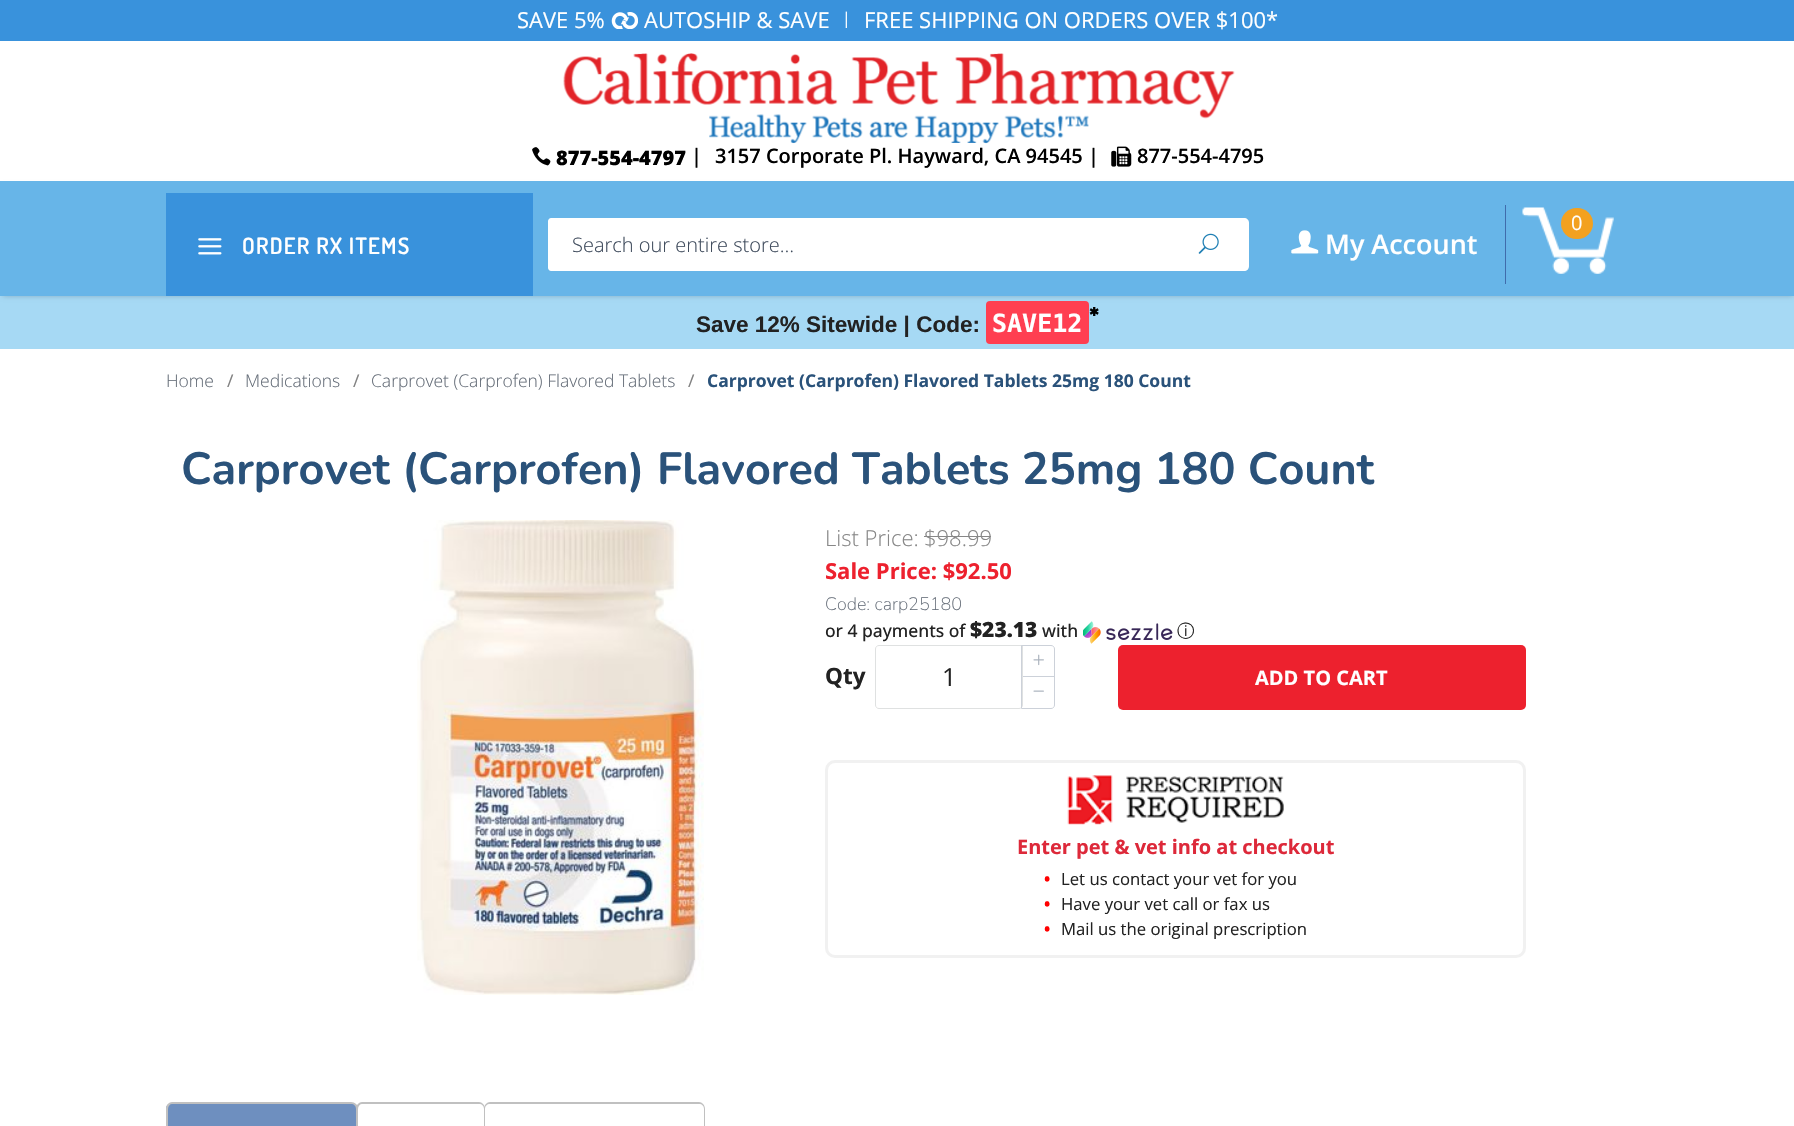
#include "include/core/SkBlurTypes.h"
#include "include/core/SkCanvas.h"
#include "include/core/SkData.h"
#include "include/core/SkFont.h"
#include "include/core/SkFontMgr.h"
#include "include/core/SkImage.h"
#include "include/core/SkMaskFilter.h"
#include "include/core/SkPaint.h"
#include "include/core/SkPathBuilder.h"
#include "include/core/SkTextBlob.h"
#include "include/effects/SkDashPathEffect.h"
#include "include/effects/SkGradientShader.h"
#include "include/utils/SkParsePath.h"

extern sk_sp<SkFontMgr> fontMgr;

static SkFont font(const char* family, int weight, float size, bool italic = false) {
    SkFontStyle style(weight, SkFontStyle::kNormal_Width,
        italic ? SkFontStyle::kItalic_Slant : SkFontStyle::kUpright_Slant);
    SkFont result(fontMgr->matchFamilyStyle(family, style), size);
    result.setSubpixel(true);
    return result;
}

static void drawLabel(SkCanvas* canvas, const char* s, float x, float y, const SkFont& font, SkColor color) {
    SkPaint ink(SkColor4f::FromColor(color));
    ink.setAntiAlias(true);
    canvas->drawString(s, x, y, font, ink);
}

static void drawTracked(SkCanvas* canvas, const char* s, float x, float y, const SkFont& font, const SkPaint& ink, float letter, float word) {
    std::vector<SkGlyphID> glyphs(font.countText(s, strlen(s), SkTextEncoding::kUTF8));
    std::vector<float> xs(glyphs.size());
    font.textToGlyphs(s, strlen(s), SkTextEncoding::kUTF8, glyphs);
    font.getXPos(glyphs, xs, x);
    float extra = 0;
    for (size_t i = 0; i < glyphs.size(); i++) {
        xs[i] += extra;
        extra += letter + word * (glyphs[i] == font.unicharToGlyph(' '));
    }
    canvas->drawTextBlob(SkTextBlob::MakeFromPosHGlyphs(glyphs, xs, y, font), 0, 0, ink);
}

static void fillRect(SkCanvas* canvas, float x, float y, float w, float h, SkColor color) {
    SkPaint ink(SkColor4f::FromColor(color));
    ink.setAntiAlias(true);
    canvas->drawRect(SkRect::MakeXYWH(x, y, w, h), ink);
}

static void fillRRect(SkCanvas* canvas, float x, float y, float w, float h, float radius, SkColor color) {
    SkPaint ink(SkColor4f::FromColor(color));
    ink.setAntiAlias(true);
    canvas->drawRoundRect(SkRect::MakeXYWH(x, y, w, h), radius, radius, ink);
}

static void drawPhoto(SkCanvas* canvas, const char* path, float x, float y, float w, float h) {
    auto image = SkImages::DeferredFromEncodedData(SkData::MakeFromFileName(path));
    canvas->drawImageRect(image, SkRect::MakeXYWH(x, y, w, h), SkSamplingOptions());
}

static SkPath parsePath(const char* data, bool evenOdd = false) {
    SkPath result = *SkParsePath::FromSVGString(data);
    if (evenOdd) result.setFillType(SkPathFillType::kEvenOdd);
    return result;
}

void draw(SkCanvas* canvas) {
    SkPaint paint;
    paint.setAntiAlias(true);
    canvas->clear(0xFFFFFFFF);
    fillRect(canvas, 0, 0, 1794, 41, 0xFF3992DC);
    SkFont font1 = font("Open Sans", 400, 22);
    drawLabel(canvas, "SAVE 5%", 517, 28, font1, 0xFFFFFFFF);
    drawPhoto(canvas, "assets/img1.png", 611, 12, 27, 17);
    drawLabel(canvas, "AUTOSHIP & SAVE", 644, 28, font1, 0xFFFFFFFF);
    SkFont font2 = font("Open Sans", 400, 16);
    drawLabel(canvas, "|", 842, 24, font2, 0xFFFFFFFF);
    drawLabel(canvas, "FREE SHIPPING ON ORDERS OVER $100*", 864, 28, font1, 0xFFFFFFFF);
    drawPhoto(canvas, "assets/img2.png", 563, 53, 672, 91);
    drawPhoto(canvas, "assets/img3.png", 532, 147, 19, 19);
    SkFont font3 = font("Open Sans", 800, 20);
    drawLabel(canvas, "877-554-4797", 556, 165, font3, 0xFF000000);
    SkFont font4 = font("Open Sans", 600, 20);
    drawLabel(canvas, "|", 691, 163, font4, 0xFF000000);
    drawLabel(canvas, "3157 Corporate Pl. Hayward, CA 94545 |", 715, 163, font4, 0xFF000000);
    drawPhoto(canvas, "assets/img4.png", 1111, 146, 21, 21);
    drawLabel(canvas, "877-554-4795", 1137, 163, font4, 0xFF000000);
    fillRect(canvas, 0, 296, 1794, 53, 0xFFA6D9F4);
    fillRRect(canvas, 986, 301, 103, 43, 4, 0xFFFF3F51);
    paint.setColor(0x33000000);
    paint.setMaskFilter(SkMaskFilter::MakeBlur(kNormal_SkBlurStyle, 2.5f));
    canvas->drawRect(SkRect::MakeXYWH(3, 186, 1790, 110), paint);
    paint.setMaskFilter(nullptr);
    fillRect(canvas, 0, 181, 1794, 115, 0xFF67B5E8);
    fillRect(canvas, 166, 193, 367, 103, 0xFF3992DC);
    drawPhoto(canvas, "assets/img5.png", 198, 238, 24, 17);
    SkFont font5 = font("Dosis", 600, 22.5f);
    paint.setColor(0xFFFFFFFF);
    drawTracked(canvas, "ORDER RX ITEMS", 242, 254, font5, paint, 1.25f, 0);
    canvas->drawPath(parsePath("M551 218H1169V271H551C549.5 271 548 269.5 548 268V221C548 219.5 549.5 218 551 218Z"), paint);
    SkFont font6 = font("Open Sans", 300, 20);
    drawLabel(canvas, "Search our entire store…", 572, 252, font6, 0xFF404C5D);
    canvas->drawPath(parsePath("M1169 218H1244C1247 218 1249 220 1249 223V266C1249 269 1247 271 1244 271H1169Z"), paint);
    drawPhoto(canvas, "assets/img6.png", 1198, 233, 21, 21);
    drawPhoto(canvas, "assets/img7.png", 1522, 207, 92, 67);
    fillRRect(canvas, 1561, 208, 32, 31, 15.5f, 0xFFF3A11F);
    SkFont font7 = font("Open Sans", 400, 20);
    drawLabel(canvas, "0", 1571, 230, font7, 0xFFFFFFFF);
    fillRect(canvas, 1505, 205, 1, 79, 0xFF406CAC);
    drawPhoto(canvas, "assets/img8.png", 1291, 230, 28, 24);
    SkFont font8 = font("Open Sans", 600, 27);
    drawLabel(canvas, "My Account", 1325, 254, font8, 0xFFFFFFFF);
    SkFont font9 = font("DejaVu Sans", 700, 12);
    drawLabel(canvas, "✱", 1089, 316, font9, 0xFF000000);
    SkFont font10 = font("Liberation Sans", 700, 22.5f);
    drawLabel(canvas, "Save 12% Sitewide | Code:", 696, 332, font10, 0xFF222222);
    SkFont font11 = font("DejaVu Sans Mono", 700, 25);
    drawLabel(canvas, "SAVE12", 992, 332, font11, 0xFFFFFFFF);
    SkFont font12 = font("Open Sans", 300, 17.5f);
    drawLabel(canvas, "Home", 166, 387, font12, 0xFF656D78);
    SkFont font13 = font("Open Sans", 400, 17.5f);
    drawLabel(canvas, "/", 227, 387, font13, 0xFF818181);
    drawLabel(canvas, "Medications", 245, 387, font12, 0xFF656D78);
    drawLabel(canvas, "/", 353, 387, font13, 0xFF818181);
    drawLabel(canvas, "Carprovet (Carprofen) Flavored Tablets", 371, 387, font12, 0xFF656D78);
    drawLabel(canvas, "/", 688, 387, font13, 0xFF818181);
    SkFont font14 = font("Open Sans", 700, 17.5f);
    drawLabel(canvas, "Carprovet (Carprofen) Flavored Tablets 25mg 180 Count", 707, 387, font14, 0xFF2A527A);
    SkFont font15 = font("Nunito", 700, 45);
    drawLabel(canvas, "Carprovet (Carprofen) Flavored Tablets 25mg 180 Count", 181, 484, font15, 0xFF2A527A);
    drawPhoto(canvas, "assets/img9.png", 417, 520, 287, 475);
    SkFont font16 = font("Open Sans", 300, 22);
    drawLabel(canvas, "List Price:", 825, 546, font16, 0xFF878787);
    drawLabel(canvas, "$98.99", 924, 546, font16, 0xFF878787);
    fillRect(canvas, 924, 536, 67, 1, 0xFF878787);
    SkFont font17 = font("Open Sans", 700, 22);
    drawLabel(canvas, "Sale Price: $92.50", 825, 579, font17, 0xFFED212E);
    SkFont font18 = font("Nunito", 200, 18);
    drawLabel(canvas, "Code: carp25180", 825, 610, font18, 0xFF656D78);
    SkFont font19 = font("Open Sans", 500, 17.5f);
    drawLabel(canvas, "or 4 payments of", 825, 637, font19, 0xFF222222);
    SkFont font20 = font("Open Sans", 800, 21);
    drawLabel(canvas, "$23.13", 970, 637, font20, 0xFF222222);
    drawLabel(canvas, "with", 1042, 637, font19, 0xFF222222);
    drawPhoto(canvas, "assets/img10.png", 1083, 621, 90, 23);
    SkFont font21 = font("WenQuanYi Zen Hei", 500, 17.5f);
    drawLabel(canvas, "ⓘ", 1177, 637, font21, 0xFF222222);
    SkFont font22 = font("Open Sans", 700, 22.5f);
    drawLabel(canvas, "Qty", 825, 684, font22, 0xFF222222);
    paint.setStroke(true);
    paint.setStrokeWidth(1);
    paint.setColor(0xFFDFE1E1);
    canvas->drawPath(parsePath("M879 645.5H1022.5V705C1022.5 707 1021 708.5 1019 708.5H879C877 708.5 875.5 707 875.5 705V649C875.5 647 877 645.5 879 645.5Z"), paint);
    SkFont font23 = font("Open Sans", 400, 25);
    drawLabel(canvas, "1", 942, 686, font23, 0xFF222222);
    paint.setColor(0xFFCCD1D9);
    canvas->drawPath(parsePath("M1021.5 645.5H1051C1053 645.5 1054.5 647 1054.5 649V705C1054.5 707 1053 708.5 1051 708.5H1021.5Z"), paint);
    fillRect(canvas, 1023, 676, 31, 1, 0xFFCCD1D9);
    drawPhoto(canvas, "assets/img11.png", 1033, 654, 11, 12);
    drawPhoto(canvas, "assets/img12.png", 1033, 690, 11, 2);
    fillRRect(canvas, 1118, 645, 408, 65, 5, 0xFFED212E);
    SkFont font24 = font("Open Sans", 700, 20);
    drawLabel(canvas, "ADD TO CART", 1255, 685, font24, 0xFFFFFFFF);
    paint.setStrokeWidth(3);
    paint.setColor(0xFFF1F1F1);
    canvas->drawRoundRect(SkRect::MakeXYWH(826.5f, 761.5f, 698, 195), 8.5f, 8.5f, paint);
    drawPhoto(canvas, "assets/img13.png", 1067, 775, 217, 50);
    drawLabel(canvas, "Enter pet & vet info at checkout", 1017, 854, font24, 0xFFDD293A);
    SkFont font25 = font("Open Sans", 700, 16.7f);
    drawLabel(canvas, "•", 1044, 885, font25, 0xFFFF0000);
    SkFont font26 = font("Open Sans", 400, 16.7f);
    drawLabel(canvas, "Let us contact your vet for you", 1061, 885, font26, 0xFF222222);
    drawLabel(canvas, "•", 1044, 910, font25, 0xFFFF0000);
    drawLabel(canvas, "Have your vet call or fax us", 1061, 910, font26, 0xFF222222);
    drawLabel(canvas, "•", 1044, 935, font25, 0xFFFF0000);
    drawLabel(canvas, "Mail us the original prescription", 1061, 935, font26, 0xFF222222);
    paint.setStroke(false);
    paint.setColor(0xFF6E8FBF);
    canvas->drawPath(parsePath("M172 1103H352C355.5 1103 358 1105.5 358 1109V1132H166V1109C166 1105.5 168.5 1103 172 1103Z"), paint);
    paint.setColor(0xFFC0C0C0);
    canvas->drawPath(parsePath("M172 1102H351C355 1102 358 1105 358 1109V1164H166V1109C166 1105 169 1102 172 1102ZM172 1104H351C354 1104 356 1106 356 1109V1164H168V1109C168 1106 170 1104 172 1104Z", true), paint);
    canvas->drawPath(parsePath("M362 1102H479C482 1102 485 1105 485 1109V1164H356V1109C356 1105 359 1102 362 1102ZM362 1104H479C482 1104 484 1106 484 1109V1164H358V1109C358 1106 360 1104 362 1104Z", true), paint);
    canvas->drawPath(parsePath("M490 1102H699C702 1102 705 1105 705 1109V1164H484V1109C484 1105 487 1102 490 1102ZM490 1104H699C702 1104 704 1106 704 1109V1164H485V1109C485 1106 487 1104 490 1104Z", true), paint);
}
